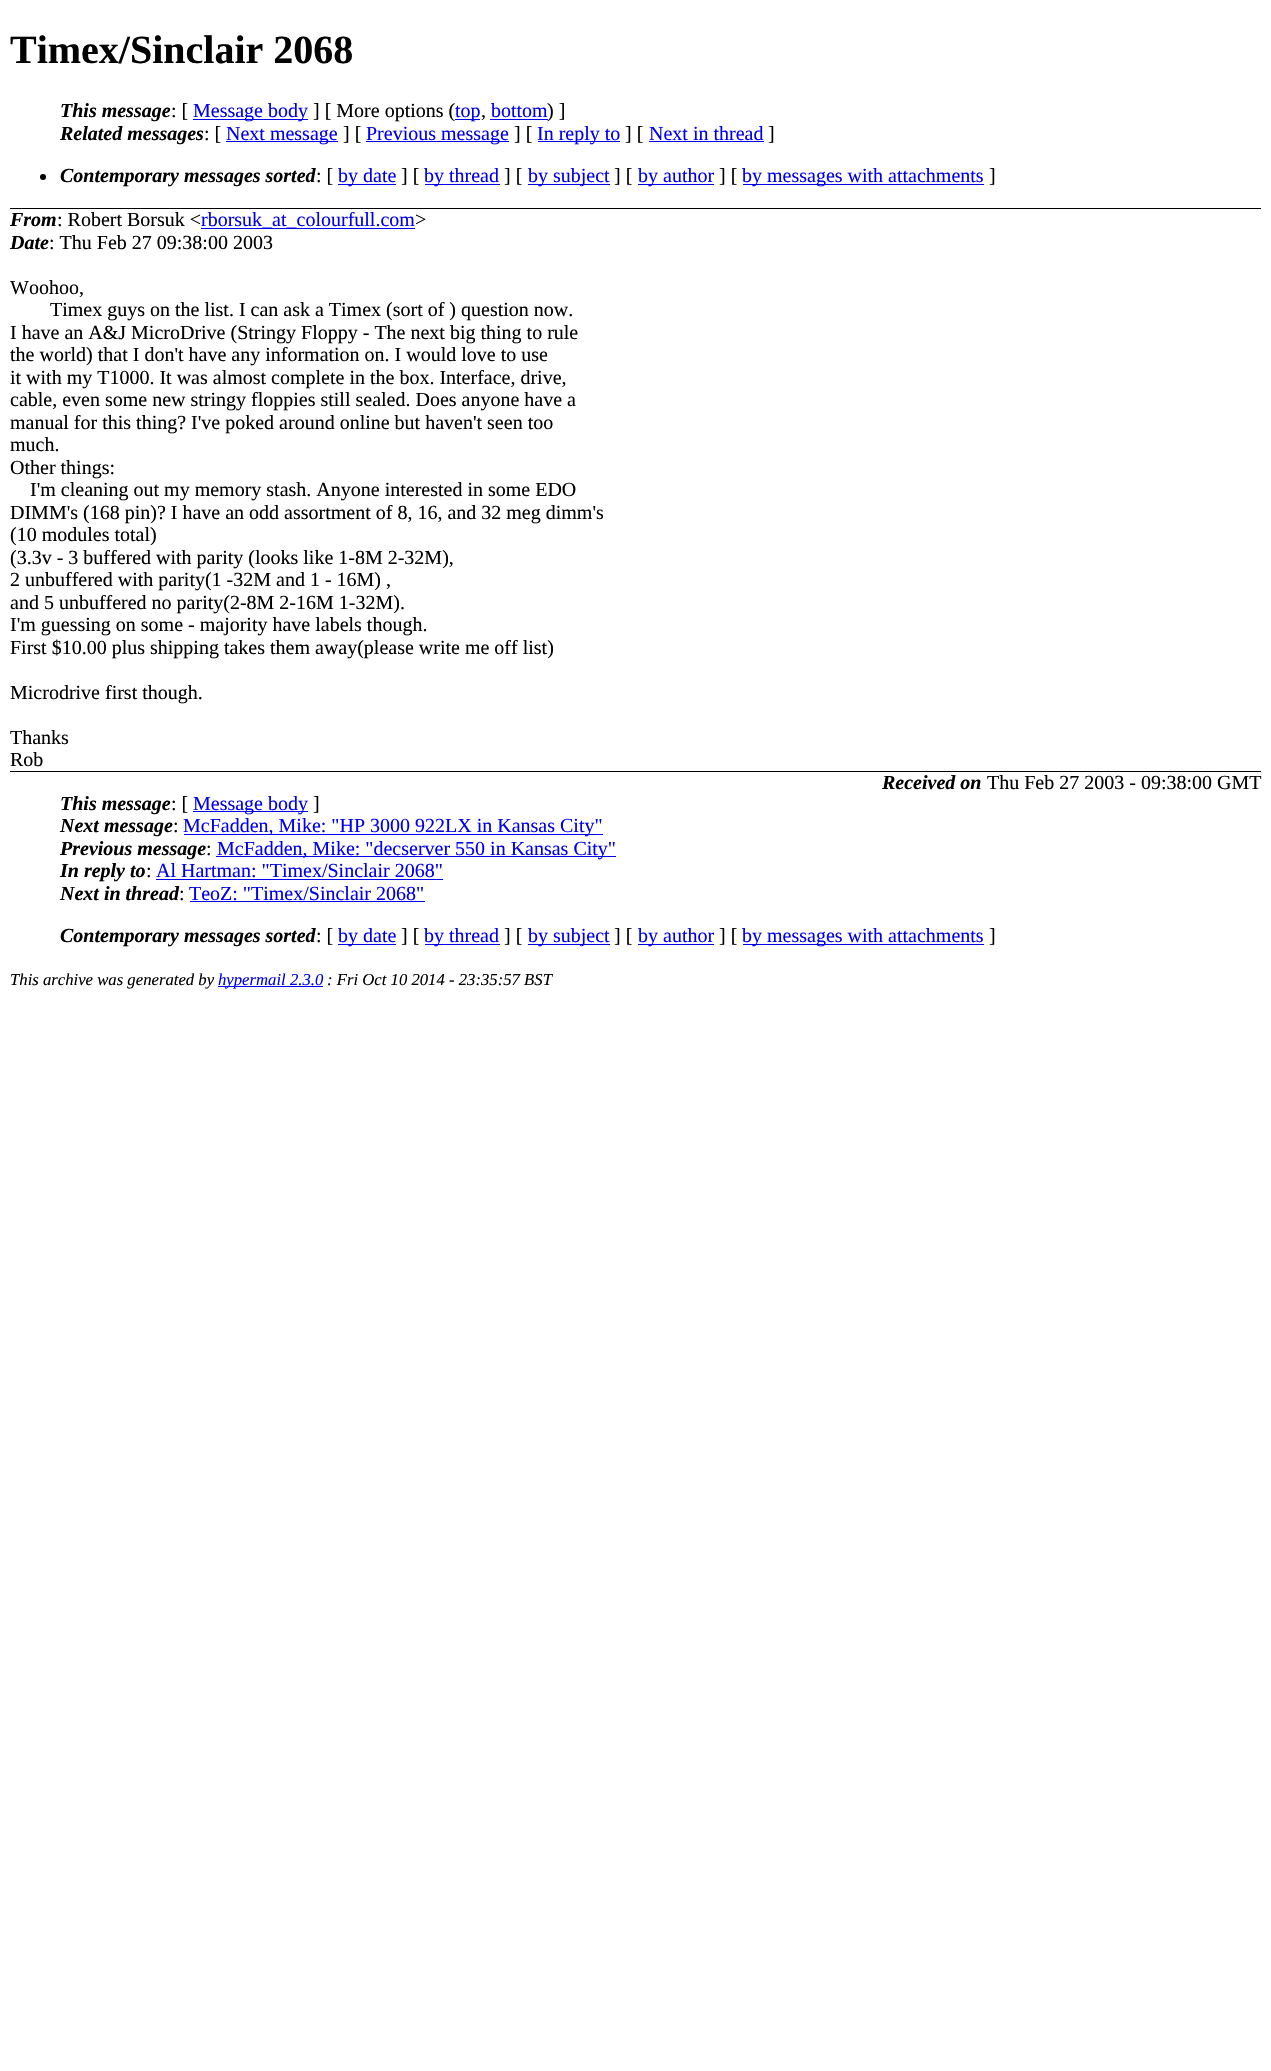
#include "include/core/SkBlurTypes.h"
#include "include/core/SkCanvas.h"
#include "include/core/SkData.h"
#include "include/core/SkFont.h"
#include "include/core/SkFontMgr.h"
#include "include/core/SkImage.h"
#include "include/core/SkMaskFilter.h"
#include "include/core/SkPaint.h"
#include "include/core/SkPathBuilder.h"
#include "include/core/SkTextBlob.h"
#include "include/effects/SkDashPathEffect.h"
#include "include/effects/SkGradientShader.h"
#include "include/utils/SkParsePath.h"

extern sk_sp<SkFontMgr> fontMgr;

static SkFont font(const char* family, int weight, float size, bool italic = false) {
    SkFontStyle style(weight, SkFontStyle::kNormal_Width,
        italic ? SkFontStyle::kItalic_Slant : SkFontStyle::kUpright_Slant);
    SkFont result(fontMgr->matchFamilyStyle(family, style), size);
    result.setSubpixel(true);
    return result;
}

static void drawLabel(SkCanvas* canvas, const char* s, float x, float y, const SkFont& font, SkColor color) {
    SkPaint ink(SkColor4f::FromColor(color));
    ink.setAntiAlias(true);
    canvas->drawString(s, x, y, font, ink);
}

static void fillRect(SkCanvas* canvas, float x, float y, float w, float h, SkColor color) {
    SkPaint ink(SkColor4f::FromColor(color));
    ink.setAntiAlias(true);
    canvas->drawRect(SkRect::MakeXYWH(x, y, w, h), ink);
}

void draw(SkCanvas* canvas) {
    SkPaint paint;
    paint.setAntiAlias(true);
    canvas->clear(0xFFFFFFFF);
    fillRect(canvas, 10, 208, 1251, 1, 0xFF000000);
    SkFont font1 = font("Liberation Serif", 700, 40);
    drawLabel(canvas, "Timex/Sinclair 2068", 10, 63, font1, 0xFF000000);
    SkFont font2 = font("Liberation Serif", 700, 20, true);
    drawLabel(canvas, "This message", 60, 117, font2, 0xFF000000);
    SkFont font3 = font("Liberation Serif", 400, 20);
    drawLabel(canvas, ": [", 171, 117, font3, 0xFF000000);
    fillRect(canvas, 193, 119, 115, 1, 0xFF0000EE);
    drawLabel(canvas, "Message body", 193, 117, font3, 0xFF0000EE);
    drawLabel(canvas, "] [ More options (", 313, 117, font3, 0xFF000000);
    fillRect(canvas, 455, 119, 25, 1, 0xFF0000EE);
    drawLabel(canvas, "top", 455, 117, font3, 0xFF0000EE);
    drawLabel(canvas, ",", 481, 117, font3, 0xFF000000);
    drawLabel(canvas, "bottom", 491, 117, font3, 0xFF0000EE);
    fillRect(canvas, 490, 119, 58, 1, 0xFF0000EE);
    drawLabel(canvas, ") ]", 547, 117, font3, 0xFF000000);
    drawLabel(canvas, "Related messages", 60, 140, font2, 0xFF000000);
    drawLabel(canvas, ": [", 204, 140, font3, 0xFF000000);
    fillRect(canvas, 226, 141, 112, 1, 0xFF0000EE);
    drawLabel(canvas, "Next message", 226, 140, font3, 0xFF0000EE);
    drawLabel(canvas, "] [", 343, 140, font3, 0xFF000000);
    fillRect(canvas, 366, 141, 143, 1, 0xFF0000EE);
    drawLabel(canvas, "Previous message", 366, 140, font3, 0xFF0000EE);
    drawLabel(canvas, "] [", 514, 140, font3, 0xFF000000);
    fillRect(canvas, 538, 141, 82, 1, 0xFF0000EE);
    drawLabel(canvas, "In reply to", 537, 140, font3, 0xFF0000EE);
    drawLabel(canvas, "] [", 625, 140, font3, 0xFF000000);
    drawLabel(canvas, "Next in thread", 649, 140, font3, 0xFF0000EE);
    fillRect(canvas, 649, 141, 115, 1, 0xFF0000EE);
    drawLabel(canvas, "]", 768, 140, font3, 0xFF000000);
    paint.setColor(0xFF000000);
    canvas->drawCircle(43, 177, 3, paint);
    drawLabel(canvas, "Contemporary messages sorted", 60, 182, font2, 0xFF000000);
    drawLabel(canvas, ": [", 316, 182, font3, 0xFF000000);
    fillRect(canvas, 338, 184, 58, 1, 0xFF0000EE);
    drawLabel(canvas, "by date", 338, 182, font3, 0xFF0000EE);
    drawLabel(canvas, "] [", 401, 182, font3, 0xFF000000);
    fillRect(canvas, 425, 184, 75, 1, 0xFF0000EE);
    drawLabel(canvas, "by thread", 424, 182, font3, 0xFF0000EE);
    drawLabel(canvas, "] [", 504, 182, font3, 0xFF000000);
    fillRect(canvas, 528, 184, 82, 1, 0xFF0000EE);
    drawLabel(canvas, "by subject", 528, 182, font3, 0xFF0000EE);
    drawLabel(canvas, "] [", 614, 182, font3, 0xFF000000);
    fillRect(canvas, 638, 184, 76, 1, 0xFF0000EE);
    drawLabel(canvas, "by author", 638, 182, font3, 0xFF0000EE);
    drawLabel(canvas, "] [", 719, 182, font3, 0xFF000000);
    fillRect(canvas, 743, 184, 241, 1, 0xFF0000EE);
    drawLabel(canvas, "by messages with attachments", 742, 182, font3, 0xFF0000EE);
    drawLabel(canvas, "]", 989, 182, font3, 0xFF000000);
    drawLabel(canvas, "From", 10, 226, font2, 0xFF000000);
    drawLabel(canvas, ": Robert Borsuk <", 57, 226, font3, 0xFF000000);
    fillRect(canvas, 201, 228, 214, 1, 0xFF0000EE);
    drawLabel(canvas, "rborsuk_at_colourfull.com", 201, 226, font3, 0xFF0000EE);
    drawLabel(canvas, ">", 415, 226, font3, 0xFF000000);
    drawLabel(canvas, "Date", 10, 249, font2, 0xFF000000);
    drawLabel(canvas, ": Thu Feb 27 09:38:00 2003", 49, 249, font3, 0xFF000000);
    drawLabel(canvas, "Woohoo,", 10, 294, font3, 0xFF000000);
    drawLabel(canvas, "Timex guys on the list. I can ask a Timex (sort of ) question now.", 50, 316, font3, 0xFF000000);
    drawLabel(canvas, "I have an A&J MicroDrive (Stringy Floppy - The next big thing to rule", 10, 339, font3, 0xFF000000);
    drawLabel(canvas, "the world) that I don't have any information on. I would love to use", 10, 361, font3, 0xFF000000);
    drawLabel(canvas, "it with my T1000. It was almost complete in the box. Interface, drive,", 10, 384, font3, 0xFF000000);
    drawLabel(canvas, "cable, even some new stringy floppies still sealed. Does anyone have a", 10, 406, font3, 0xFF000000);
    drawLabel(canvas, "manual for this thing? I've poked around online but haven't seen too", 10, 429, font3, 0xFF000000);
    drawLabel(canvas, "much.", 10, 451, font3, 0xFF000000);
    drawLabel(canvas, "Other things:", 10, 474, font3, 0xFF000000);
    drawLabel(canvas, "I'm cleaning out my memory stash. Anyone interested in some EDO", 30, 496, font3, 0xFF000000);
    drawLabel(canvas, "DIMM's (168 pin)? I have an odd assortment of 8, 16, and 32 meg dimm's", 10, 519, font3, 0xFF000000);
    drawLabel(canvas, "(10 modules total)", 10, 541, font3, 0xFF000000);
    drawLabel(canvas, "(3.3v - 3 buffered with parity (looks like 1-8M 2-32M),", 10, 564, font3, 0xFF000000);
    drawLabel(canvas, "2 unbuffered with parity(1 -32M and 1 - 16M) ,", 10, 586, font3, 0xFF000000);
    drawLabel(canvas, "and 5 unbuffered no parity(2-8M 2-16M 1-32M).", 10, 609, font3, 0xFF000000);
    drawLabel(canvas, "I'm guessing on some - majority have labels though.", 10, 631, font3, 0xFF000000);
    drawLabel(canvas, "First $10.00 plus shipping takes them away(please write me off list)", 10, 654, font3, 0xFF000000);
    drawLabel(canvas, "Microdrive first though.", 10, 699, font3, 0xFF000000);
    drawLabel(canvas, "Thanks", 10, 744, font3, 0xFF000000);
    drawLabel(canvas, "Rob", 10, 766, font3, 0xFF000000);
    drawLabel(canvas, "Received on", 882, 789, font2, 0xFF000000);
    drawLabel(canvas, "Thu Feb 27 2003 - 09:38:00 GMT", 987, 789, font3, 0xFF000000);
    fillRect(canvas, 10, 771, 1251, 1, 0xFF000000);
    drawLabel(canvas, "This message", 60, 810, font2, 0xFF000000);
    drawLabel(canvas, ": [", 171, 810, font3, 0xFF000000);
    fillRect(canvas, 193, 811, 115, 1, 0xFF0000EE);
    drawLabel(canvas, "Message body", 193, 810, font3, 0xFF0000EE);
    drawLabel(canvas, "]", 313, 810, font3, 0xFF000000);
    drawLabel(canvas, "Next message", 60, 832, font2, 0xFF000000);
    drawLabel(canvas, ":", 173, 832, font3, 0xFF000000);
    fillRect(canvas, 184, 834, 419, 1, 0xFF0000EE);
    drawLabel(canvas, "McFadden, Mike: \"HP 3000 922LX in Kansas City\"", 183, 832, font3, 0xFF0000EE);
    drawLabel(canvas, "Previous message", 60, 855, font2, 0xFF000000);
    drawLabel(canvas, ":", 206, 855, font3, 0xFF000000);
    fillRect(canvas, 216, 856, 400, 1, 0xFF0000EE);
    drawLabel(canvas, "McFadden, Mike: \"decserver 550 in Kansas City\"", 217, 855, font3, 0xFF0000EE);
    drawLabel(canvas, "In reply to", 60, 877, font2, 0xFF000000);
    drawLabel(canvas, ":", 146, 877, font3, 0xFF000000);
    drawLabel(canvas, "Al Hartman: \"Timex/Sinclair 2068\"", 156, 877, font3, 0xFF0000EE);
    fillRect(canvas, 156, 879, 287, 1, 0xFF0000EE);
    drawLabel(canvas, "Next in thread", 60, 900, font2, 0xFF000000);
    drawLabel(canvas, ":", 179, 900, font3, 0xFF000000);
    drawLabel(canvas, "TeoZ: \"Timex/Sinclair 2068\"", 189, 900, font3, 0xFF0000EE);
    fillRect(canvas, 190, 901, 235, 1, 0xFF0000EE);
    drawLabel(canvas, "Contemporary messages sorted", 60, 942, font2, 0xFF000000);
    drawLabel(canvas, ": [", 316, 942, font3, 0xFF000000);
    fillRect(canvas, 338, 944, 58, 1, 0xFF0000EE);
    drawLabel(canvas, "by date", 338, 942, font3, 0xFF0000EE);
    drawLabel(canvas, "] [", 401, 942, font3, 0xFF000000);
    fillRect(canvas, 425, 944, 75, 1, 0xFF0000EE);
    drawLabel(canvas, "by thread", 424, 942, font3, 0xFF0000EE);
    drawLabel(canvas, "] [", 504, 942, font3, 0xFF000000);
    fillRect(canvas, 528, 944, 82, 1, 0xFF0000EE);
    drawLabel(canvas, "by subject", 528, 942, font3, 0xFF0000EE);
    drawLabel(canvas, "] [", 614, 942, font3, 0xFF000000);
    fillRect(canvas, 638, 944, 76, 1, 0xFF0000EE);
    drawLabel(canvas, "by author", 638, 942, font3, 0xFF0000EE);
    drawLabel(canvas, "] [", 719, 942, font3, 0xFF000000);
    fillRect(canvas, 743, 944, 241, 1, 0xFF0000EE);
    drawLabel(canvas, "by messages with attachments", 742, 942, font3, 0xFF0000EE);
    drawLabel(canvas, "]", 989, 942, font3, 0xFF000000);
    SkFont font4 = font("Liberation Serif", 400, 16.7f, true);
    drawLabel(canvas, "This archive was generated by", 10, 985, font4, 0xFF000000);
    fillRect(canvas, 218, 986, 105, 1, 0xFF0000EE);
    drawLabel(canvas, "hypermail 2.3.0", 218, 985, font4, 0xFF0000EE);
    drawLabel(canvas, ": Fri Oct 10 2014 - 23:35:57 BST", 327, 985, font4, 0xFF000000);
}
